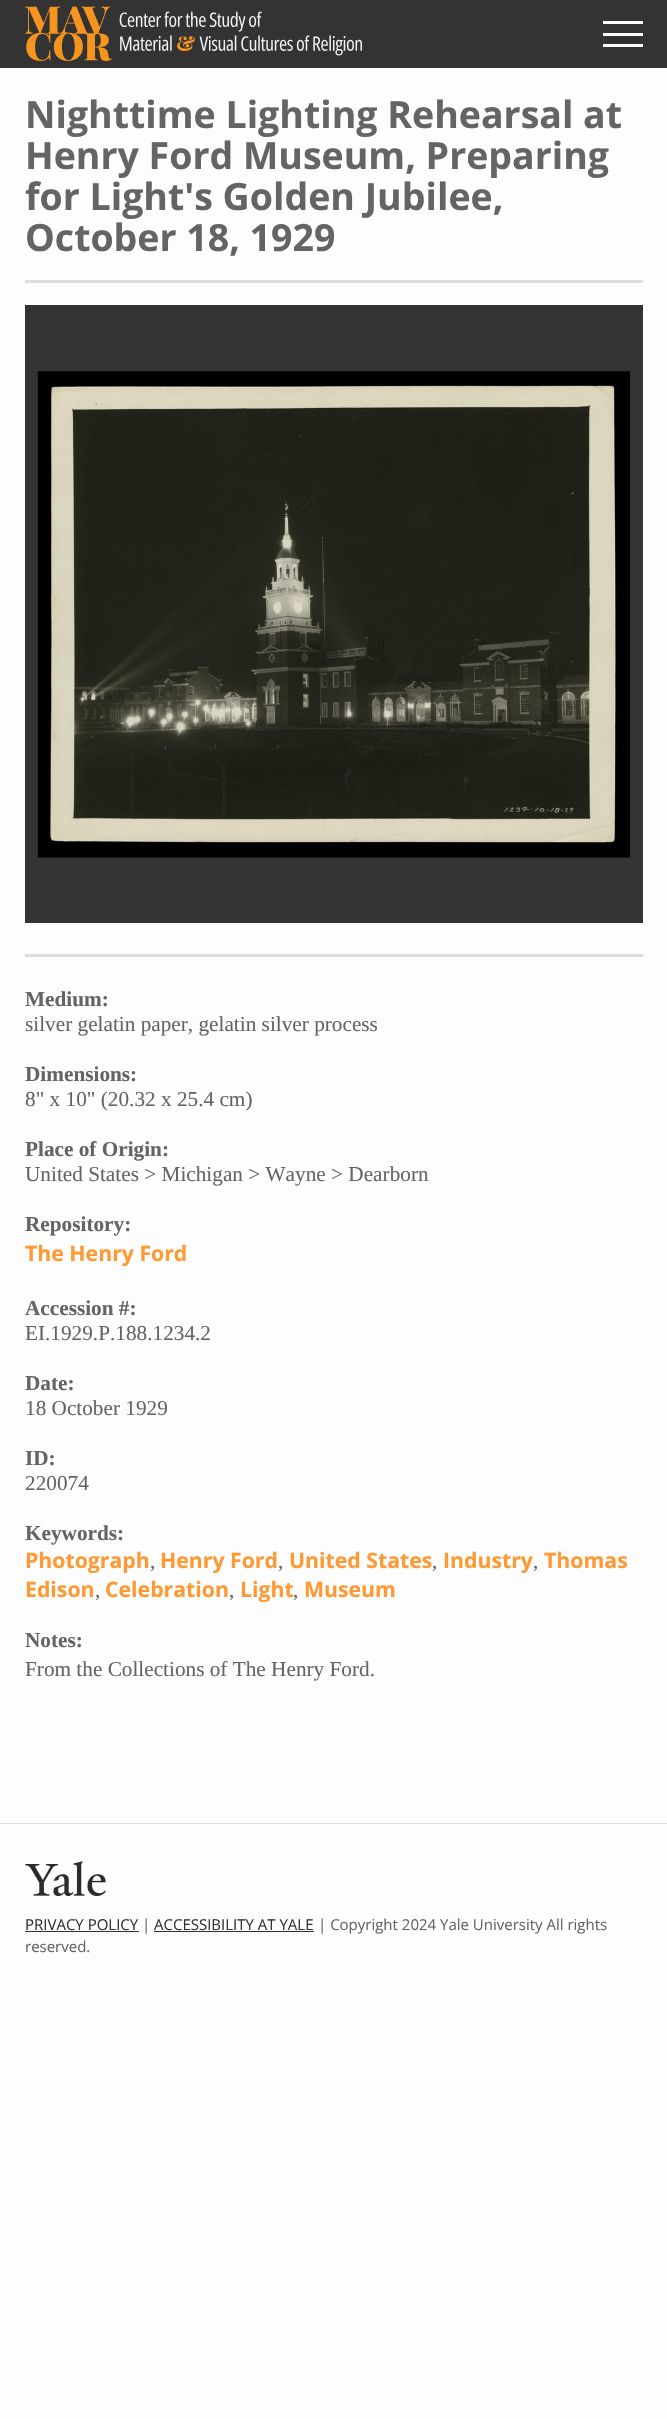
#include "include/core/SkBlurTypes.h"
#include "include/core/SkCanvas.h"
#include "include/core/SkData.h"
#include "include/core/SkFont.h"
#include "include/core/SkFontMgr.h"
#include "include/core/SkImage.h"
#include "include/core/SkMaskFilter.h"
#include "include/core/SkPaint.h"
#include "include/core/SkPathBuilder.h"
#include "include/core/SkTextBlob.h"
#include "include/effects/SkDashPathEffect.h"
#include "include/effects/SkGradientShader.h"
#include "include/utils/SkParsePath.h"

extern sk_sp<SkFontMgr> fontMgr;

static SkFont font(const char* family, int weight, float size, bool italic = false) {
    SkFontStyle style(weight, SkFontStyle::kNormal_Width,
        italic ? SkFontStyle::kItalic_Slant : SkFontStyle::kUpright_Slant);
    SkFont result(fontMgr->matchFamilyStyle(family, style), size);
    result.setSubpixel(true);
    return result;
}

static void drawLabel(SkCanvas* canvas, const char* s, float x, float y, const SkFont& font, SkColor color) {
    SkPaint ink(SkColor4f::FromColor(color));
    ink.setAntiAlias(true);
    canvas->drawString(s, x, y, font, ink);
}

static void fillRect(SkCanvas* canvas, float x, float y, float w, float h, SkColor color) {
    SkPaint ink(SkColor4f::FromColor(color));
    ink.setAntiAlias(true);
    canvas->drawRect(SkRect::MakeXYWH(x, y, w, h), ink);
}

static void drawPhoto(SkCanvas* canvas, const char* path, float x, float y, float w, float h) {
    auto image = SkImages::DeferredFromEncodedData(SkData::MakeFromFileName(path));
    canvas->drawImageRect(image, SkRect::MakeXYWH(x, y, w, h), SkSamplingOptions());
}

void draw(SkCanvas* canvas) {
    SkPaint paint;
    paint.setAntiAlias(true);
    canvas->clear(0xFFFDFDFD);
    fillRect(canvas, 0, 0, 667, 68, 0xFF333333);
    drawPhoto(canvas, "assets/img1.png", 25, 6, 337, 55);
    fillRect(canvas, 603, 21, 40, 3, 0xFFFFFFFF);
    fillRect(canvas, 603, 33, 40, 3, 0xFFFFFFFF);
    fillRect(canvas, 603, 44, 40, 3, 0xFFFFFFFF);
    fillRect(canvas, 25, 280, 618, 3, 0xFFDCDCDC);
    SkFont font1 = font("Open Sans", 700, 37.5f);
    drawLabel(canvas, "Nighttime Lighting Rehearsal at", 25, 128, font1, 0xFF646464);
    drawLabel(canvas, "Henry Ford Museum, Preparing", 25, 169, font1, 0xFF646464);
    drawLabel(canvas, "for Light's Golden Jubilee,", 25, 210, font1, 0xFF646464);
    drawLabel(canvas, "October 18, 1929", 25, 251, font1, 0xFF646464);
    fillRect(canvas, 25, 305, 618, 618, 0xFF333333);
    drawPhoto(canvas, "assets/img2.png", 37, 371, 593, 487);
    fillRect(canvas, 25, 954, 618, 3, 0xFFDCDCDC);
    SkFont font2 = font("Liberation Serif", 700, 21.25f);
    drawLabel(canvas, "Medium:", 25, 1006, font2, 0xFF646464);
    SkFont font3 = font("Liberation Serif", 400, 21.25f);
    drawLabel(canvas, "silver gelatin paper, gelatin silver process", 25, 1031, font3, 0xFF646464);
    drawLabel(canvas, "Dimensions:", 25, 1081, font2, 0xFF646464);
    drawLabel(canvas, "8\" x 10\" (20.32 x 25.4 cm)", 25, 1106, font3, 0xFF646464);
    drawLabel(canvas, "Place of Origin:", 25, 1156, font2, 0xFF646464);
    drawLabel(canvas, "United States > Michigan > Wayne > Dearborn", 25, 1181, font3, 0xFF646464);
    drawLabel(canvas, "Repository:", 25, 1231, font2, 0xFF646464);
    SkFont font4 = font("Open Sans", 700, 21.25f);
    drawLabel(canvas, "The Henry Ford", 25, 1261, font4, 0xFFFF9933);
    drawLabel(canvas, "Accession #:", 25, 1315, font2, 0xFF646464);
    drawLabel(canvas, "EI.1929.P.188.1234.2", 25, 1340, font3, 0xFF646464);
    drawLabel(canvas, "Date:", 25, 1390, font2, 0xFF646464);
    drawLabel(canvas, "18 October 1929", 25, 1415, font3, 0xFF646464);
    drawLabel(canvas, "ID:", 25, 1465, font2, 0xFF646464);
    drawLabel(canvas, "220074", 25, 1490, font3, 0xFF646464);
    drawLabel(canvas, "Keywords:", 25, 1540, font2, 0xFF646464);
    drawLabel(canvas, "Photograph", 25, 1568, font4, 0xFFFF9933);
    drawLabel(canvas, ",", 150, 1568, font3, 0xFF646464);
    drawLabel(canvas, "Henry Ford", 160, 1568, font4, 0xFFFF9933);
    drawLabel(canvas, ",", 278, 1568, font3, 0xFF646464);
    drawLabel(canvas, "United States", 289, 1568, font4, 0xFFFF9933);
    drawLabel(canvas, ",", 432, 1568, font3, 0xFF646464);
    drawLabel(canvas, "Industry", 443, 1568, font4, 0xFFFF9933);
    drawLabel(canvas, ",", 533, 1568, font3, 0xFF646464);
    drawLabel(canvas, "Thomas", 544, 1568, font4, 0xFFFF9933);
    drawLabel(canvas, "Edison", 25, 1597, font4, 0xFFFF9933);
    drawLabel(canvas, ",", 95, 1597, font3, 0xFF646464);
    drawLabel(canvas, "Celebration", 105, 1597, font4, 0xFFFF9933);
    drawLabel(canvas, ",", 229, 1597, font3, 0xFF646464);
    drawLabel(canvas, "Light", 240, 1597, font4, 0xFFFF9933);
    drawLabel(canvas, ",", 293, 1597, font3, 0xFF646464);
    drawLabel(canvas, "Museum", 304, 1597, font4, 0xFFFF9933);
    drawLabel(canvas, "Notes:", 25, 1647, font2, 0xFF646464);
    drawLabel(canvas, "From the Collections of The Henry Ford.", 25, 1676, font3, 0xFF646464);
    fillRect(canvas, 0, 1823, 667, 1, 0xFFDCDCDC);
    drawPhoto(canvas, "assets/img3.png", 25, 1861, 81, 35);
    SkFont font5 = font("Open Sans", 400, 15);
    drawLabel(canvas, "PRIVACY POLICY", 25, 1930, font5, 0xFF333333);
    fillRect(canvas, 25, 1931, 114, 1, 0xFF333333);
    drawLabel(canvas, "|", 142, 1930, font5, 0xFF646464);
    drawLabel(canvas, "ACCESSIBILITY AT YALE", 154, 1930, font5, 0xFF333333);
    fillRect(canvas, 154, 1931, 160, 1, 0xFF333333);
    drawLabel(canvas, "| Copyright 2024 Yale University All rights", 318, 1930, font5, 0xFF646464);
    drawLabel(canvas, "reserved.", 25, 1952, font5, 0xFF646464);
}
